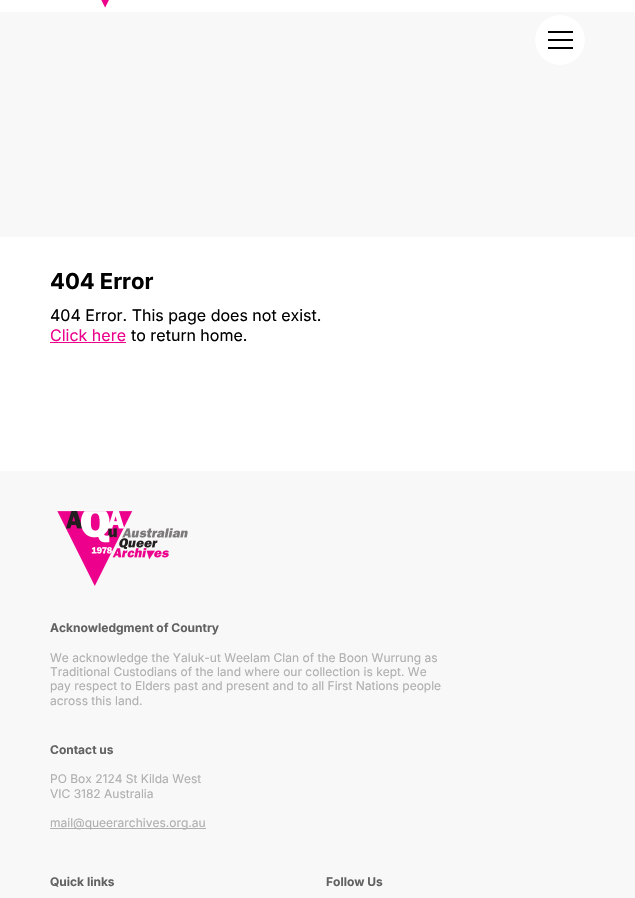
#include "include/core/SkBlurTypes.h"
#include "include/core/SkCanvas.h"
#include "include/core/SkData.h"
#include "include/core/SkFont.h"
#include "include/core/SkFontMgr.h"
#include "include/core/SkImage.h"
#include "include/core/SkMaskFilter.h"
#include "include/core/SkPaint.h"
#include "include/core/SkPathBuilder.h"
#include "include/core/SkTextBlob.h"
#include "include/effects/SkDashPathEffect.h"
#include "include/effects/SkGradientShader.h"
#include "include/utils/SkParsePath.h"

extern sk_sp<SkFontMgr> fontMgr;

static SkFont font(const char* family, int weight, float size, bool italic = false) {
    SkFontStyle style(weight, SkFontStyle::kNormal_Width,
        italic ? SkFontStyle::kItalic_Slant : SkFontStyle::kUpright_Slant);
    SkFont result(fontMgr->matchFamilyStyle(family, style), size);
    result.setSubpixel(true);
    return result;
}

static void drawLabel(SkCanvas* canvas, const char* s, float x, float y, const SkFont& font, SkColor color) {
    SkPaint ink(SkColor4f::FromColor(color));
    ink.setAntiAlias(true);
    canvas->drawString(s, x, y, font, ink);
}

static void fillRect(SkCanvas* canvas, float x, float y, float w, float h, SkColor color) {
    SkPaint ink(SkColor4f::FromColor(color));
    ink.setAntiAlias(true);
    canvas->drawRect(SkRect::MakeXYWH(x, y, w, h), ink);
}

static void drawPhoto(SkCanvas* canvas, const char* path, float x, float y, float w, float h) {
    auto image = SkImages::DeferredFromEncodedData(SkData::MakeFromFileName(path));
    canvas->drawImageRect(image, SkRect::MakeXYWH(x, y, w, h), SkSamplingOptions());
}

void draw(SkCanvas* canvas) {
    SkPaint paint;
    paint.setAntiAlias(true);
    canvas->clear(0xFFFFFFFF);
    drawPhoto(canvas, "assets/img1.png", 101, 0, 8, 8);
    fillRect(canvas, 0, 12, 635, 225, 0xFFF8F8F8);
    paint.setColor(0xFFFFFFFF);
    canvas->drawCircle(560, 40, 25, paint);
    fillRect(canvas, 548, 31, 25, 2, 0xFF000000);
    fillRect(canvas, 548, 39, 25, 2, 0xFF000000);
    fillRect(canvas, 548, 47, 25, 2, 0xFF000000);
    SkFont font1 = font("Inter", 700, 22);
    drawLabel(canvas, "404 Error", 50, 289, font1, 0xFF000000);
    SkFont font2 = font("Inter", 400, 16);
    drawLabel(canvas, "404 Error. This page does not exist.", 50, 321, font2, 0xFF000000);
    drawLabel(canvas, "Click here", 50, 341, font2, 0xFFEC008C);
    fillRect(canvas, 50, 342, 76, 1, 0xFFEC008C);
    drawLabel(canvas, "to return home.", 131, 341, font2, 0xFF000000);
    fillRect(canvas, 0, 471, 635, 427, 0xFFF8F8F8);
    drawPhoto(canvas, "assets/img2.png", 57, 511, 131, 75);
    SkFont font3 = font("Inter", 700, 12);
    drawLabel(canvas, "Acknowledgment of Country", 50, 632, font3, 0xFF626262);
    SkFont font4 = font("Inter", 400, 12);
    drawLabel(canvas, "We acknowledge the Yaluk-ut Weelam Clan of the Boon Wurrung as", 50, 662, font4, 0xFFAFAFAF);
    drawLabel(canvas, "Traditional Custodians of the land where our collection is kept. We", 50, 676, font4, 0xFFAFAFAF);
    drawLabel(canvas, "pay respect to Elders past and present and to all First Nations people", 50, 690, font4, 0xFFAFAFAF);
    drawLabel(canvas, "across this land.", 50, 705, font4, 0xFFAFAFAF);
    drawLabel(canvas, "Contact us", 50, 754, font3, 0xFF626262);
    drawLabel(canvas, "PO Box 2124 St Kilda West", 50, 783, font4, 0xFFAFAFAF);
    drawLabel(canvas, "VIC 3182 Australia", 50, 798, font4, 0xFFAFAFAF);
    fillRect(canvas, 50, 828, 156, 1, 0xFFAFAFAF);
    drawLabel(canvas, "mail@queerarchives.org.au", 50, 827, font4, 0xFFAFAFAF);
    drawLabel(canvas, "Quick links", 50, 886, font3, 0xFF626262);
    drawLabel(canvas, "Follow Us", 326, 886, font3, 0xFF626262);
}
